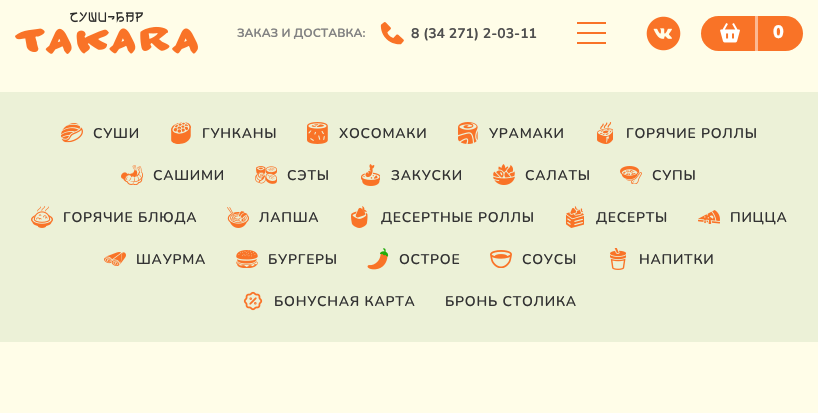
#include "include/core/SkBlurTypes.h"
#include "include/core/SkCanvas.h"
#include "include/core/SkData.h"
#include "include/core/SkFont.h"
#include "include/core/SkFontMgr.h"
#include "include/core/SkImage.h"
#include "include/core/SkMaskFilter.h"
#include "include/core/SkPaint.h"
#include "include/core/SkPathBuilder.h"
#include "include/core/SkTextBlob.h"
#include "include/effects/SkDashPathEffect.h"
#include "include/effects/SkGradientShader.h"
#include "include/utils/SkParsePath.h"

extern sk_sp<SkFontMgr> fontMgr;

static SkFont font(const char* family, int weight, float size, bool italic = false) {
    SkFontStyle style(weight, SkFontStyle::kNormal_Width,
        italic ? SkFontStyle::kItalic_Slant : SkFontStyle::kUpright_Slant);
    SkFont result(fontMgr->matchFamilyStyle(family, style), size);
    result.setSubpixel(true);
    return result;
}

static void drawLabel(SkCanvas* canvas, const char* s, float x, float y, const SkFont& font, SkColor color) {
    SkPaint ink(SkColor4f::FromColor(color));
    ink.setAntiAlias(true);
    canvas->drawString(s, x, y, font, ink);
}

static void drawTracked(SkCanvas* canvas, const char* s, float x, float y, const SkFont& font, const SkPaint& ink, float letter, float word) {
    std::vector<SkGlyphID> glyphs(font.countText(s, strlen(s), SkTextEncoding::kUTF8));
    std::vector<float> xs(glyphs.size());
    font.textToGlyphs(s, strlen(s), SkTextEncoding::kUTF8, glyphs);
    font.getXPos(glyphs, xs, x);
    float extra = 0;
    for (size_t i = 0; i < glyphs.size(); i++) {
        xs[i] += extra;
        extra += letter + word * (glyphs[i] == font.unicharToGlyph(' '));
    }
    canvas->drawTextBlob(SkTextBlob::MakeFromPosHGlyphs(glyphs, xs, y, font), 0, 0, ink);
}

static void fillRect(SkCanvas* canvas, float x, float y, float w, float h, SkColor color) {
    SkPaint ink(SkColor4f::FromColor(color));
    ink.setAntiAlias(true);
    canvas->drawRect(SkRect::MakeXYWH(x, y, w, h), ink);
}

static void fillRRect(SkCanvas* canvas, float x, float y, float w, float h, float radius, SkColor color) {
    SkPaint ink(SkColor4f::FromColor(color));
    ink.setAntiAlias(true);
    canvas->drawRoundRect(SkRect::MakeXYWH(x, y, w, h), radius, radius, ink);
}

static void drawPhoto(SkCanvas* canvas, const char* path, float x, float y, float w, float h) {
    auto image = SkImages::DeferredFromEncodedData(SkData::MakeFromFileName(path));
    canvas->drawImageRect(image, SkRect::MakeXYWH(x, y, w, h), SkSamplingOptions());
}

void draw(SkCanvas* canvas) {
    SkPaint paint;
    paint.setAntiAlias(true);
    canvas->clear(0xFFFFFDE8);
    drawPhoto(canvas, "assets/img1.png", 15, 12, 183, 42);
    SkFont font1 = font("Nunito", 700, 12);
    drawLabel(canvas, "ЗАКАЗ И ДОСТАВКА:", 237, 37, font1, 0xFF828282);
    drawPhoto(canvas, "assets/img2.png", 380, 22, 24, 23);
    SkFont font2 = font("Nunito", 700, 14);
    drawLabel(canvas, "8 (34 271) 2-03-11", 411, 38, font2, 0xFF4F4F4F);
    fillRect(canvas, 577, 22, 29, 2, 0xFFF97327);
    fillRect(canvas, 577, 32, 29, 2, 0xFFF97327);
    fillRect(canvas, 577, 42, 29, 2, 0xFFF97327);
    drawPhoto(canvas, "assets/img3.png", 646, 16, 35, 35);
    fillRRect(canvas, 701, 16, 102, 35, 17.5f, 0xFFF97327);
    drawPhoto(canvas, "assets/img4.png", 720, 23, 20, 20);
    fillRect(canvas, 755, 16, 3, 35, 0xFFFCB993);
    SkFont font3 = font("Nunito", 900, 18);
    drawLabel(canvas, "0", 773, 38, font3, 0xFFFFFFFF);
    fillRect(canvas, 0, 92, 818, 250, 0xFFECF1D7);
    drawPhoto(canvas, "assets/img5.png", 61, 123, 22, 20);
    SkFont font4 = font("Nunito", 600, 14);
    paint.setColor(0xFF333333);
    drawTracked(canvas, "СУШИ", 93, 138, font4, paint, 0.75f, 0);
    drawPhoto(canvas, "assets/img6.png", 171, 122, 20, 22);
    drawTracked(canvas, "ГУНКАНЫ", 202, 138, font4, paint, 0.75f, 0);
    drawPhoto(canvas, "assets/img7.png", 307, 122, 21, 22);
    drawTracked(canvas, "ХОСОМАКИ", 339, 138, font4, paint, 0.75f, 0);
    drawPhoto(canvas, "assets/img8.png", 458, 122, 20, 22);
    drawTracked(canvas, "УРАМАКИ", 489, 138, font4, paint, 0.75f, 0);
    drawPhoto(canvas, "assets/img9.png", 597, 122, 16, 22);
    drawTracked(canvas, "ГОРЯЧИЕ РОЛЛЫ", 626, 138, font4, paint, 0.75f, 0);
    drawPhoto(canvas, "assets/img10.png", 121, 165, 22, 20);
    drawTracked(canvas, "САШИМИ", 153, 180, font4, paint, 0.75f, 0);
    drawPhoto(canvas, "assets/img11.png", 255, 166, 22, 18);
    drawTracked(canvas, "СЭТЫ", 287, 180, font4, paint, 0.75f, 0);
    drawPhoto(canvas, "assets/img12.png", 361, 164, 19, 22);
    drawTracked(canvas, "ЗАКУСКИ", 391, 180, font4, paint, 0.75f, 0);
    drawPhoto(canvas, "assets/img13.png", 493, 164, 22, 21);
    drawTracked(canvas, "САЛАТЫ", 525, 180, font4, paint, 0.75f, 0);
    drawPhoto(canvas, "assets/img14.png", 620, 166, 22, 18);
    drawTracked(canvas, "СУПЫ", 652, 180, font4, paint, 0.75f, 0);
    drawPhoto(canvas, "assets/img15.png", 31, 206, 22, 22);
    drawTracked(canvas, "ГОРЯЧИЕ БЛЮДА", 63, 222, font4, paint, 0.75f, 0);
    drawPhoto(canvas, "assets/img16.png", 227, 207, 22, 21);
    drawTracked(canvas, "ЛАПША", 259, 222, font4, paint, 0.75f, 0);
    drawPhoto(canvas, "assets/img17.png", 351, 206, 17, 22);
    drawTracked(canvas, "ДЕСЕРТНЫЕ РОЛЛЫ", 381, 222, font4, paint, 0.75f, 0);
    drawPhoto(canvas, "assets/img18.png", 566, 206, 18, 22);
    drawTracked(canvas, "ДЕСЕРТЫ", 596, 222, font4, paint, 0.75f, 0);
    drawPhoto(canvas, "assets/img19.png", 698, 210, 22, 14);
    drawTracked(canvas, "ПИЦЦА", 730, 222, font4, paint, 0.75f, 0);
    drawPhoto(canvas, "assets/img20.png", 104, 252, 22, 14);
    drawTracked(canvas, "ШАУРМА", 136, 264, font4, paint, 0.75f, 0);
    drawPhoto(canvas, "assets/img21.png", 236, 250, 22, 18);
    drawTracked(canvas, "БУРГЕРЫ", 268, 264, font4, paint, 0.75f, 0);
    drawPhoto(canvas, "assets/img22.png", 367, 248, 22, 22);
    drawTracked(canvas, "ОСТРОЕ", 399, 264, font4, paint, 0.75f, 0);
    drawPhoto(canvas, "assets/img23.png", 490, 250, 22, 18);
    drawTracked(canvas, "СОУСЫ", 522, 264, font4, paint, 0.75f, 0);
    drawPhoto(canvas, "assets/img24.png", 610, 248, 16, 22);
    drawTracked(canvas, "НАПИТКИ", 639, 264, font4, paint, 0.75f, 0);
    drawPhoto(canvas, "assets/img25.png", 243, 291, 20, 20);
    drawTracked(canvas, "БОНУСНАЯ КАРТА", 274, 306, font4, paint, 0.75f, 0);
    drawTracked(canvas, "БРОНЬ СТОЛИКА", 445, 306, font4, paint, 0.75f, 0);
}
